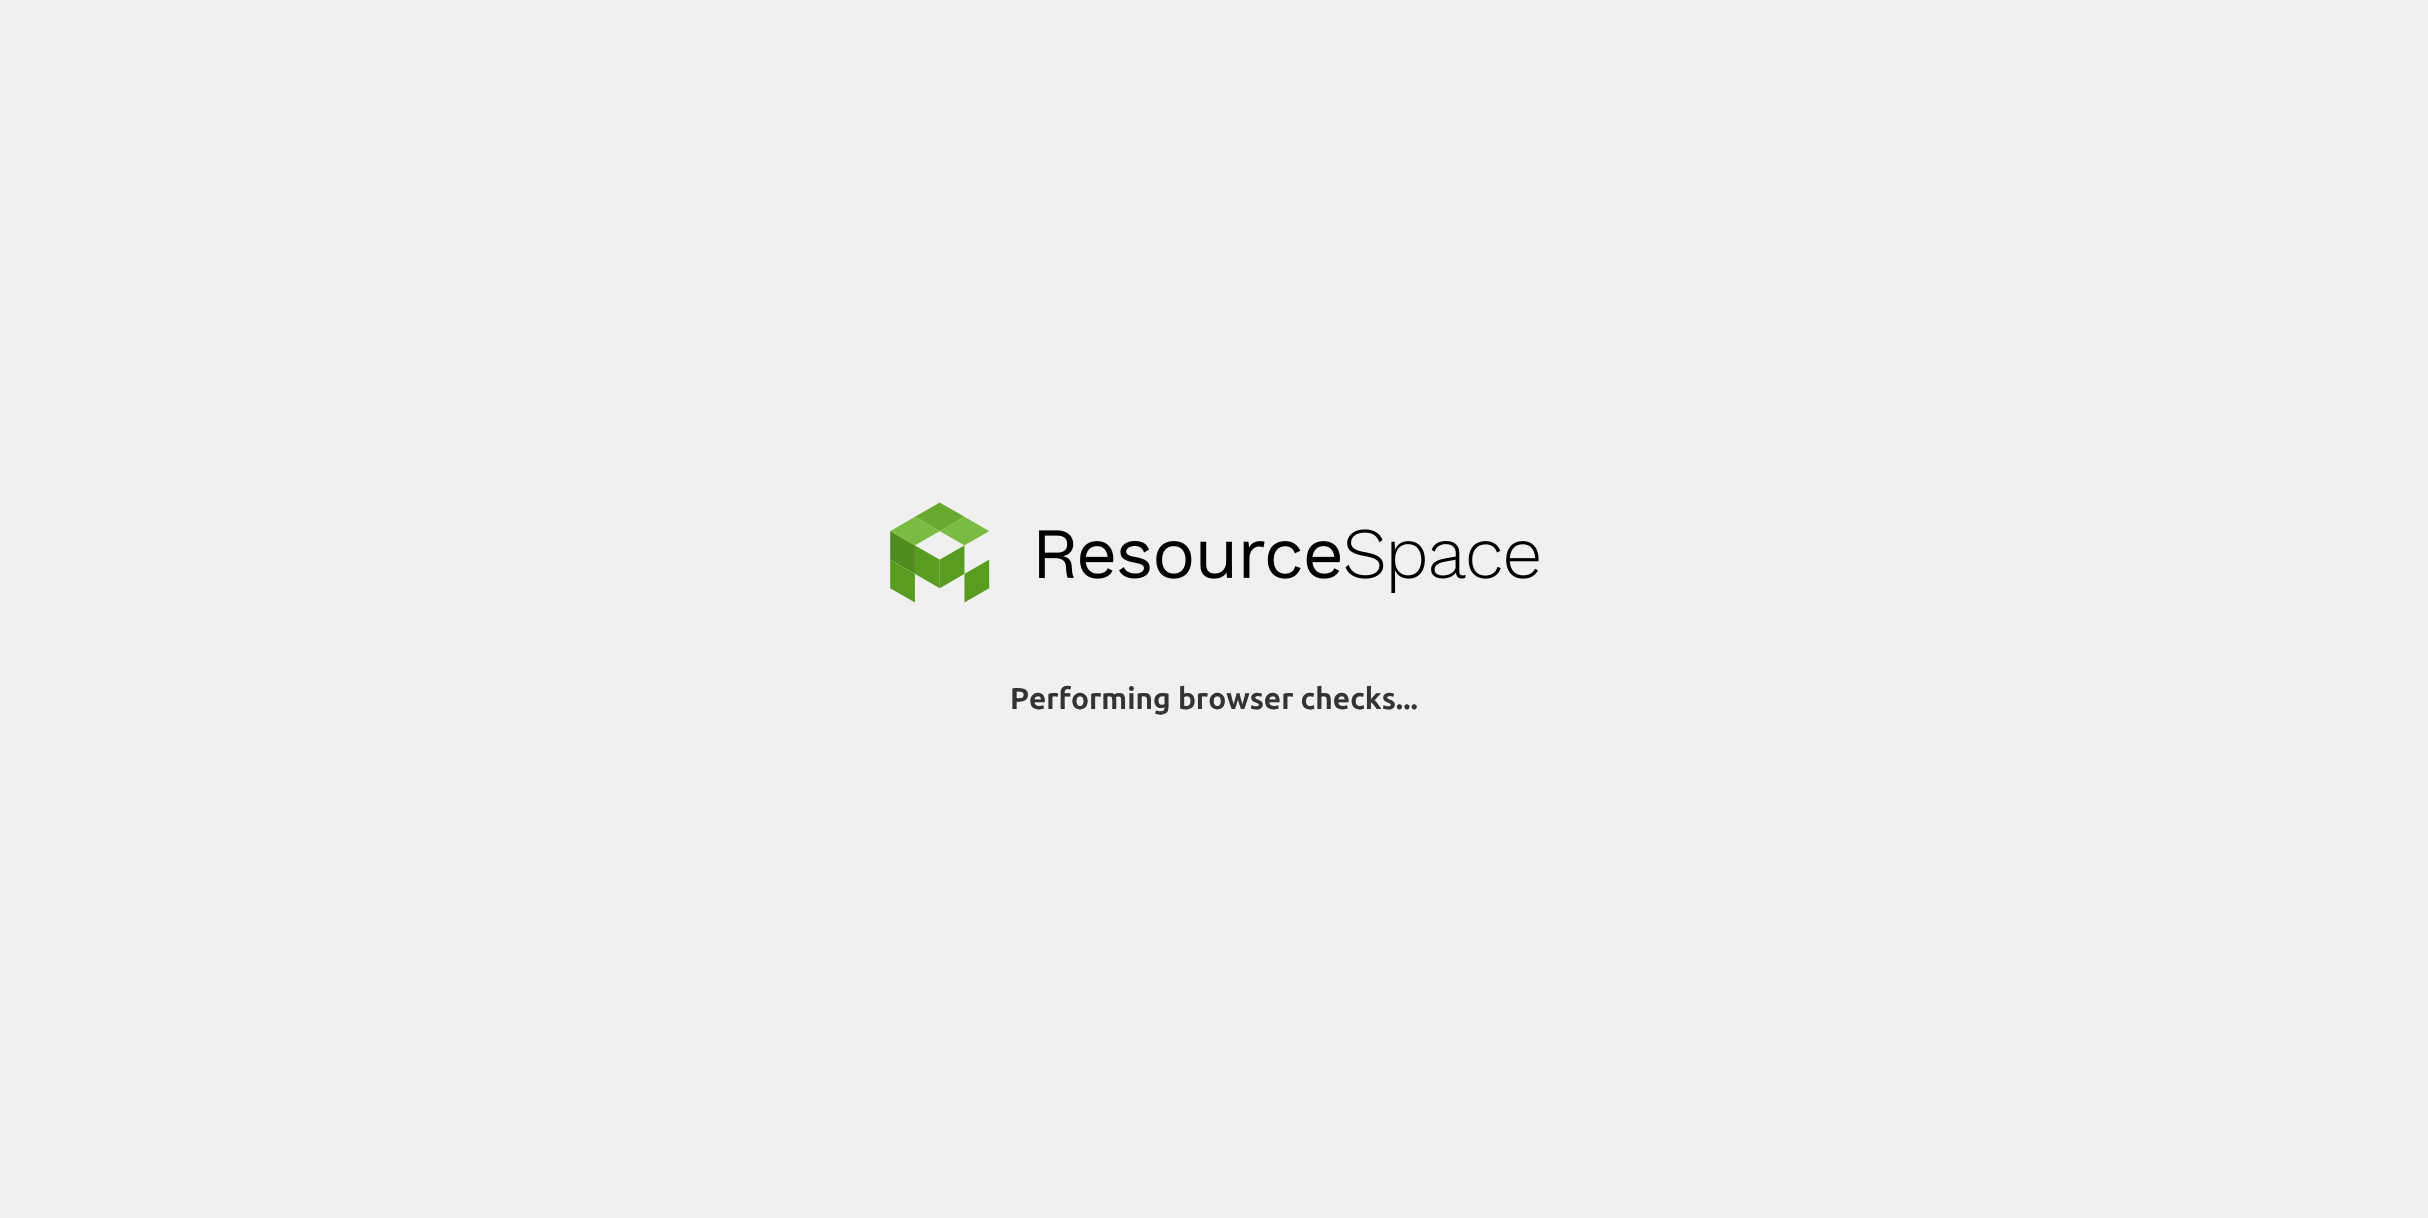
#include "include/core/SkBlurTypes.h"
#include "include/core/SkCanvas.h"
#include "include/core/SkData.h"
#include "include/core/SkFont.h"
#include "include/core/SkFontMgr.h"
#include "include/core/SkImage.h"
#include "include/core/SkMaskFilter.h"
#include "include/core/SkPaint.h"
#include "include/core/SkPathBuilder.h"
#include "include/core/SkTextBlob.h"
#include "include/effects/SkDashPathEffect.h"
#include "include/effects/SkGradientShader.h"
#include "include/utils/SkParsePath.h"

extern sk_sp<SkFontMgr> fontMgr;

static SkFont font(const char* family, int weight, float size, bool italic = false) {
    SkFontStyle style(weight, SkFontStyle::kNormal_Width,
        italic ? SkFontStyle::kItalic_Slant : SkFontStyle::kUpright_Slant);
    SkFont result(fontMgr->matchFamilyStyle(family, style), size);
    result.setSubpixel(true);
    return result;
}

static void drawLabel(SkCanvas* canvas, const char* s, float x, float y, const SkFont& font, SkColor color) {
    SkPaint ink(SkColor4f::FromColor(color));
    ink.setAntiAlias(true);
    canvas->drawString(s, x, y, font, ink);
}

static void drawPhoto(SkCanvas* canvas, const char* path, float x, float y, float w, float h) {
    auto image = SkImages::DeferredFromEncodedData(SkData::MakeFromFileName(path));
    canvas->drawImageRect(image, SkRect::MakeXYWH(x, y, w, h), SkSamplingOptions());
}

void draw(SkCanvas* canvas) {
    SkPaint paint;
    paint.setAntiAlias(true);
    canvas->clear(0xFFF0F0F0);
    drawPhoto(canvas, "assets/img1.png", 890, 502, 649, 101);
    SkFont font1 = font("Ubuntu", 700, 30);
    drawLabel(canvas, "Performing browser checks...", 1010, 709, font1, 0xFF333333);
}
